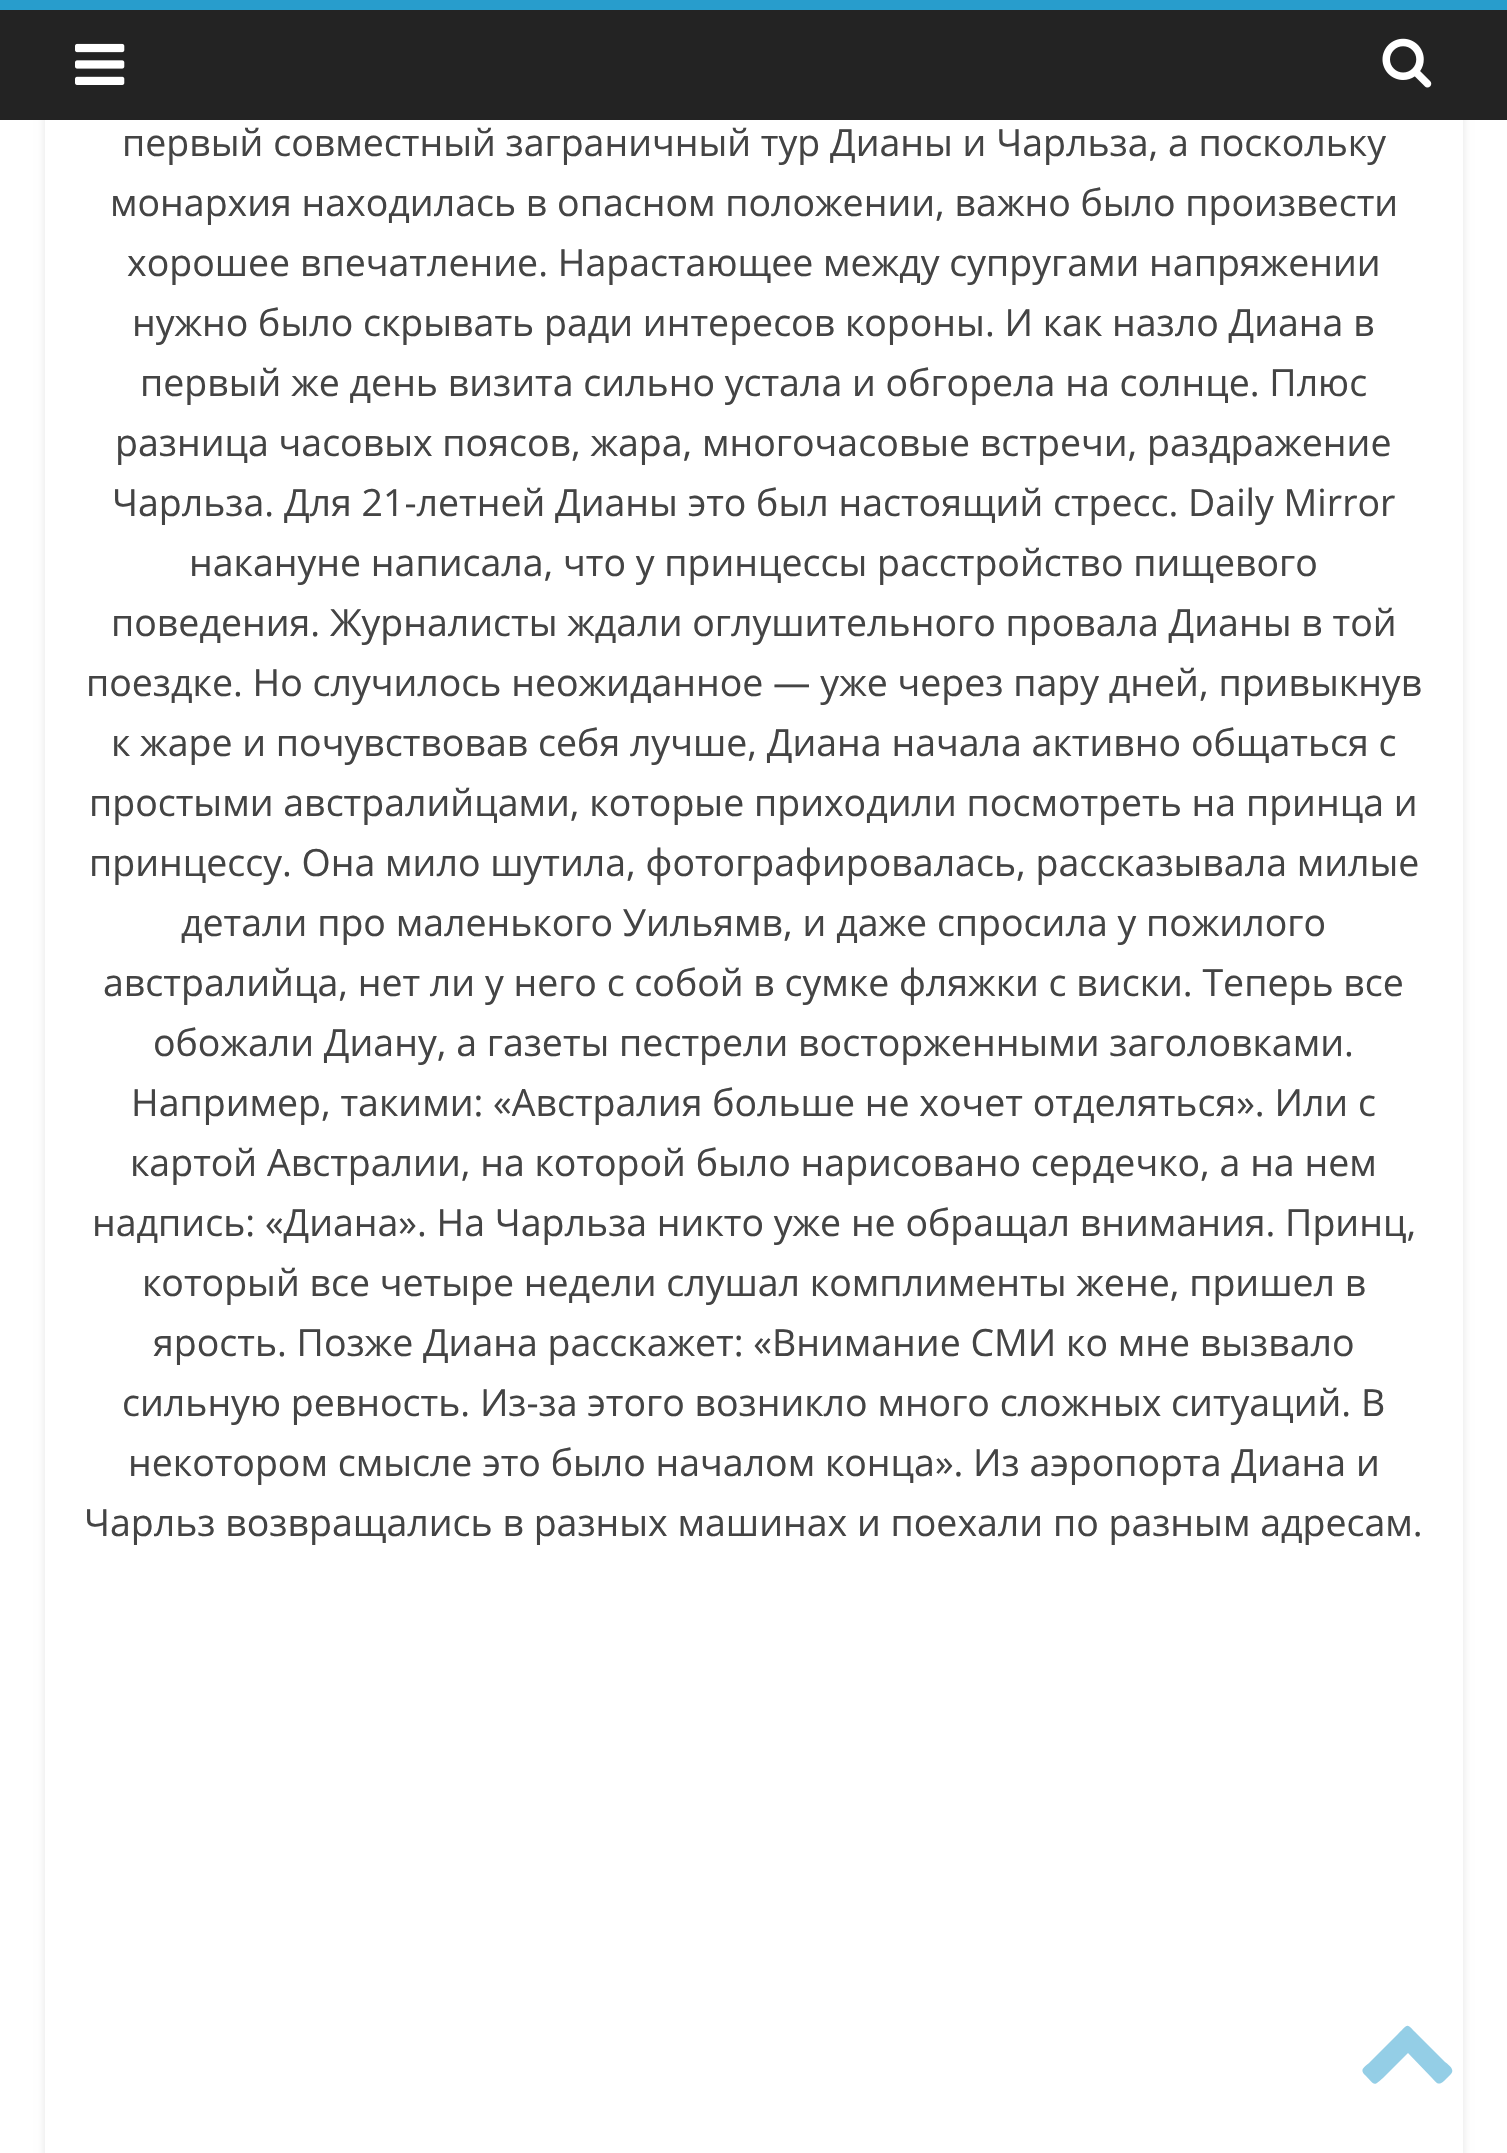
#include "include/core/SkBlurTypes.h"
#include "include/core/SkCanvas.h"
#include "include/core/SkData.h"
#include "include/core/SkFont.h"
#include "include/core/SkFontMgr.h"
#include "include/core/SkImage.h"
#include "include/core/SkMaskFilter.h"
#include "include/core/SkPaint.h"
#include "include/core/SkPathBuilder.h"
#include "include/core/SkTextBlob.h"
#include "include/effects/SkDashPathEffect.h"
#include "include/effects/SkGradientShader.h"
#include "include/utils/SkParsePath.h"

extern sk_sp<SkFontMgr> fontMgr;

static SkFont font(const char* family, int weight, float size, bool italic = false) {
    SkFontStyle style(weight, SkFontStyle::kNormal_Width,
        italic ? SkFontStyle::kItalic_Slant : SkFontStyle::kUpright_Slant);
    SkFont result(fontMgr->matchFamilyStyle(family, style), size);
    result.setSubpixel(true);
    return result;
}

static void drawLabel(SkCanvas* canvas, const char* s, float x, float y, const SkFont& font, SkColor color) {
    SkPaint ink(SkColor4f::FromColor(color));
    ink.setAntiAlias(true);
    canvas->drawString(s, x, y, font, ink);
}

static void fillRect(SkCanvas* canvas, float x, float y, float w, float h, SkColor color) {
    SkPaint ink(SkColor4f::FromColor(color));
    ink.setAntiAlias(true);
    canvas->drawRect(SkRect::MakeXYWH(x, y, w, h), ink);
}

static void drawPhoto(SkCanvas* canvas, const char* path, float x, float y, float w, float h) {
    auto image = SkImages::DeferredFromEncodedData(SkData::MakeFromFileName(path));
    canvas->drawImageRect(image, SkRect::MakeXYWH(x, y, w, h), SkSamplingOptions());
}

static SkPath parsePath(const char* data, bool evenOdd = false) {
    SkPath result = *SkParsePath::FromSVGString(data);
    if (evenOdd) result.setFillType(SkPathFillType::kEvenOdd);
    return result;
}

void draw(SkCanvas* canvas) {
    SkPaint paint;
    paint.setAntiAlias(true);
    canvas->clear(0xFFFFFFFF);
    canvas->save();
    canvas->clipPath(parsePath("M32 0H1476V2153H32ZM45-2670H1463V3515H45Z", true), true);
    paint.setColor(0x1A000000);
    paint.setMaskFilter(SkMaskFilter::MakeBlur(kNormal_SkBlurStyle, 4));
    canvas->drawRect(SkRect::MakeXYWH(45, -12, 1418, 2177), paint);
    paint.setMaskFilter(nullptr);
    canvas->restore();
    fillRect(canvas, 0, 10, 1507, 110, 0xFF232323);
    fillRect(canvas, 0, 0, 1507, 10, 0xFF289DCC);
    drawPhoto(canvas, "assets/img1.png", 75, 43, 50, 42);
    drawPhoto(canvas, "assets/img2.png", 1382, 38, 50, 50);
    SkFont font1 = font("Open Sans", 400, 37.5f);
    drawLabel(canvas, "первый совместный заграничный тур Дианы и Чарльза, а поскольку", 122, 156, font1, 0xFF444444);
    drawLabel(canvas, "монархия находилась в опасном положении, важно было произвести", 110, 216, font1, 0xFF444444);
    drawLabel(canvas, "хорошее впечатление. Нарастающее между супругами напряжении", 127, 276, font1, 0xFF444444);
    drawLabel(canvas, "нужно было скрывать ради интересов короны. И как назло Диана в", 132, 336, font1, 0xFF444444);
    drawLabel(canvas, "первый же день визита сильно устала и обгорела на солнце. Плюс", 140, 396, font1, 0xFF444444);
    drawLabel(canvas, "разница часовых поясов, жара, многочасовые встречи, раздражение", 115, 456, font1, 0xFF444444);
    drawLabel(canvas, "Чарльза. Для 21-летней Дианы это был настоящий стресс. Daily Mirror", 112, 516, font1, 0xFF444444);
    drawLabel(canvas, "накануне написала, что у принцессы расстройство пищевого", 189, 576, font1, 0xFF444444);
    drawLabel(canvas, "поведения. Журналисты ждали оглушительного провала Дианы в той", 111, 636, font1, 0xFF444444);
    drawLabel(canvas, "поездке. Но случилось неожиданное — уже через пару дней, привыкнув", 86, 696, font1, 0xFF444444);
    drawLabel(canvas, "к жаре и почувствовав себя лучше, Диана начала активно общаться с", 111, 756, font1, 0xFF444444);
    drawLabel(canvas, "простыми австралийцами, которые приходили посмотреть на принца и", 89, 816, font1, 0xFF444444);
    drawLabel(canvas, "принцессу. Она мило шутила, фотографировалась, рассказывала милые", 89, 876, font1, 0xFF444444);
    drawLabel(canvas, "детали про маленького Уильямв, и даже спросила у пожилого", 181, 936, font1, 0xFF444444);
    drawLabel(canvas, "австралийца, нет ли у него с собой в сумке фляжки с виски. Теперь все", 103, 996, font1, 0xFF444444);
    drawLabel(canvas, "обожали Диану, а газеты пестрели восторженными заголовками.", 153, 1056, font1, 0xFF444444);
    drawLabel(canvas, "Например, такими: «Австралия больше не хочет отделяться». Или с", 131, 1116, font1, 0xFF444444);
    drawLabel(canvas, "картой Австралии, на которой было нарисовано сердечко, а на нем", 130, 1176, font1, 0xFF444444);
    drawLabel(canvas, "надпись: «Диана». На Чарльза никто уже не обращал внимания. Принц,", 92, 1236, font1, 0xFF444444);
    drawLabel(canvas, "который все четыре недели слушал комплименты жене, пришел в", 142, 1296, font1, 0xFF444444);
    drawLabel(canvas, "ярость. Позже Диана расскажет: «Внимание СМИ ко мне вызвало", 153, 1356, font1, 0xFF444444);
    drawLabel(canvas, "сильную ревность. Из-за этого возникло много сложных ситуаций. В", 122, 1416, font1, 0xFF444444);
    drawLabel(canvas, "некотором смысле это было началом конца». Из аэропорта Диана и", 128, 1476, font1, 0xFF444444);
    drawLabel(canvas, "Чарльз возвращались в разных машинах и поехали по разным адресам.", 84, 1536, font1, 0xFF444444);
    paint.setColor(0xFF94CEE6);
    canvas->drawPath(parsePath("M1451 2074L1444 2081C1438 2086 1437 2083 1432 2078L1408 2053L1383 2078C1373 2087 1375 2085 1365 2075C1359 2069 1365 2067 1370 2062L1398 2034C1409 2023 1406 2023 1417 2034L1445 2062C1446 2063 1456 2069 1451 2074Z"), paint);
}
